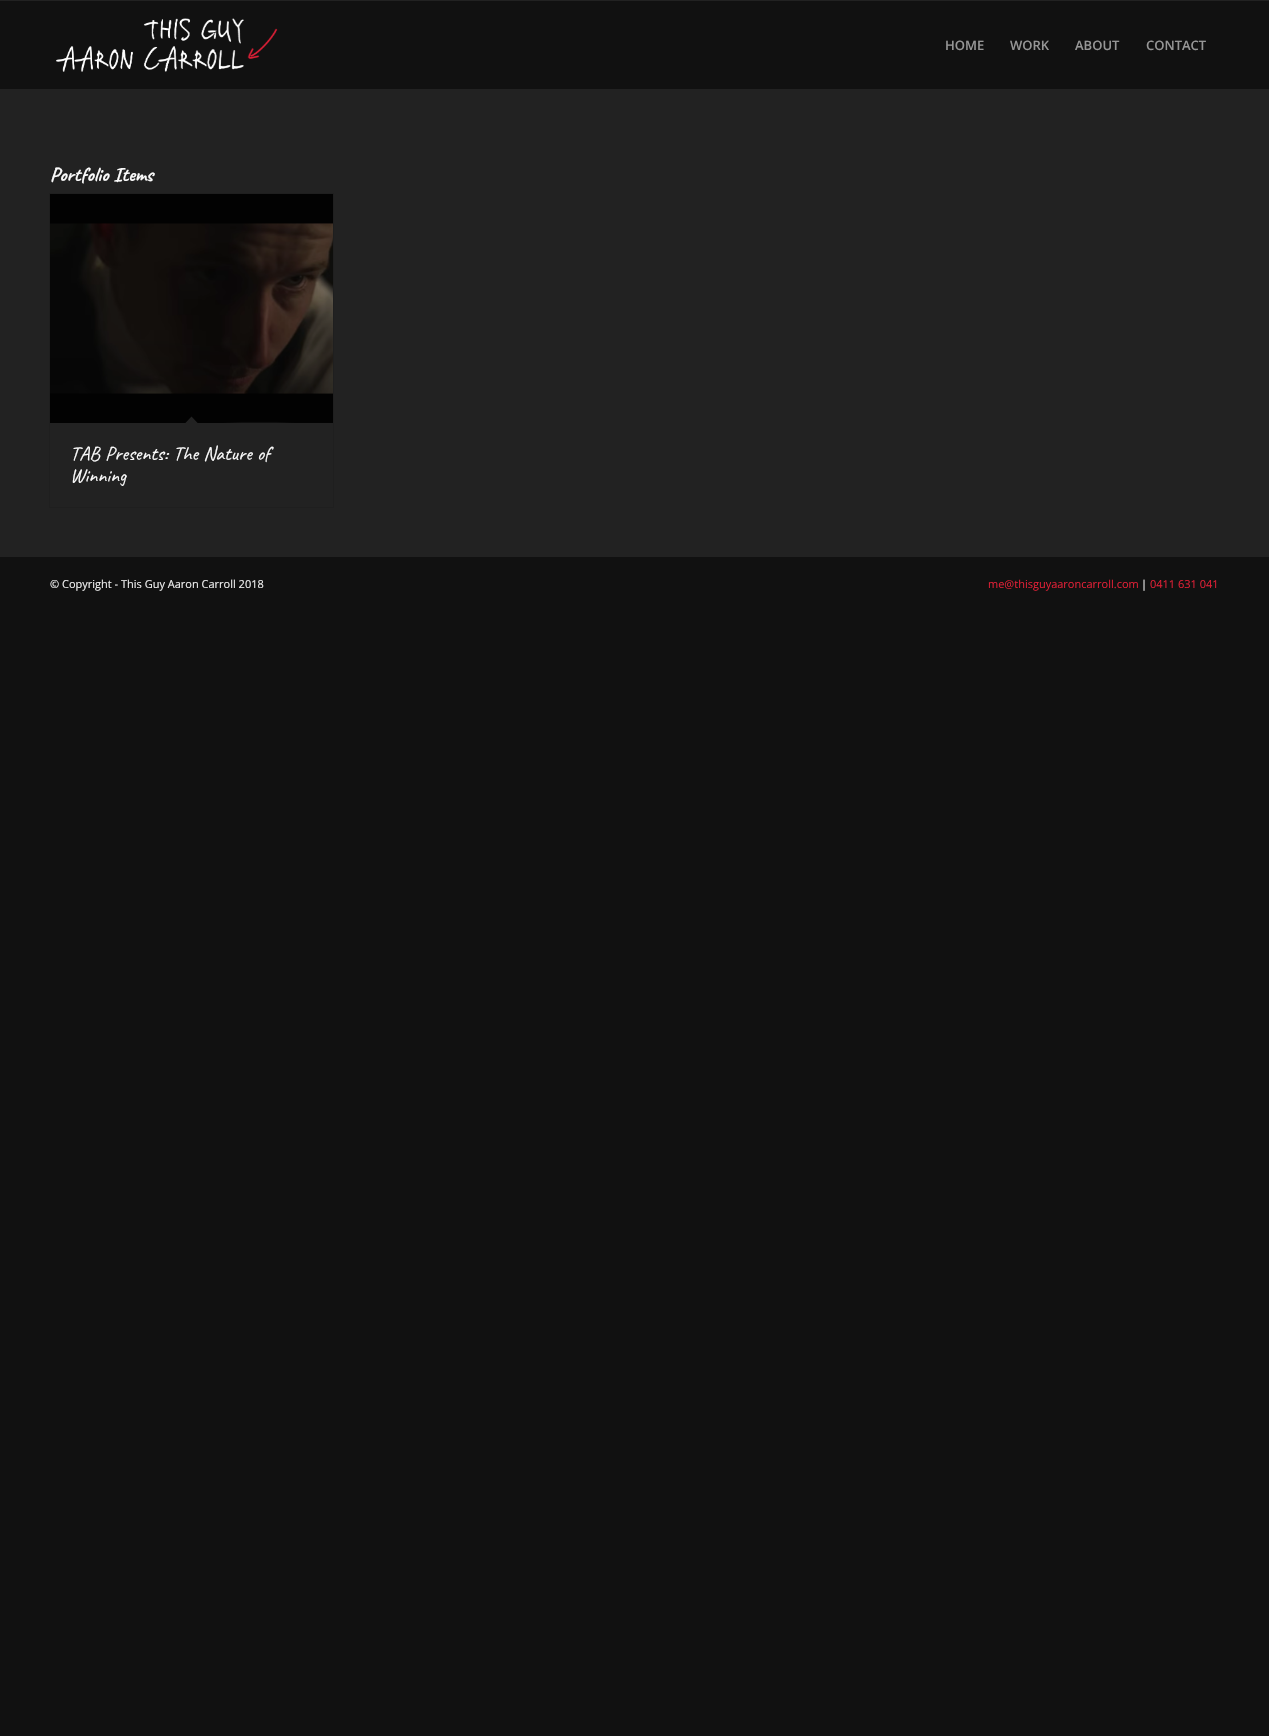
#include "include/core/SkBlurTypes.h"
#include "include/core/SkCanvas.h"
#include "include/core/SkData.h"
#include "include/core/SkFont.h"
#include "include/core/SkFontMgr.h"
#include "include/core/SkImage.h"
#include "include/core/SkMaskFilter.h"
#include "include/core/SkPaint.h"
#include "include/core/SkPathBuilder.h"
#include "include/core/SkTextBlob.h"
#include "include/effects/SkDashPathEffect.h"
#include "include/effects/SkGradientShader.h"
#include "include/utils/SkParsePath.h"

extern sk_sp<SkFontMgr> fontMgr;

static SkFont font(const char* family, int weight, float size, bool italic = false) {
    SkFontStyle style(weight, SkFontStyle::kNormal_Width,
        italic ? SkFontStyle::kItalic_Slant : SkFontStyle::kUpright_Slant);
    SkFont result(fontMgr->matchFamilyStyle(family, style), size);
    result.setSubpixel(true);
    return result;
}

static void drawLabel(SkCanvas* canvas, const char* s, float x, float y, const SkFont& font, SkColor color) {
    SkPaint ink(SkColor4f::FromColor(color));
    ink.setAntiAlias(true);
    canvas->drawString(s, x, y, font, ink);
}

static void drawTracked(SkCanvas* canvas, const char* s, float x, float y, const SkFont& font, const SkPaint& ink, float letter, float word) {
    std::vector<SkGlyphID> glyphs(font.countText(s, strlen(s), SkTextEncoding::kUTF8));
    std::vector<float> xs(glyphs.size());
    font.textToGlyphs(s, strlen(s), SkTextEncoding::kUTF8, glyphs);
    font.getXPos(glyphs, xs, x);
    float extra = 0;
    for (size_t i = 0; i < glyphs.size(); i++) {
        xs[i] += extra;
        extra += letter + word * (glyphs[i] == font.unicharToGlyph(' '));
    }
    canvas->drawTextBlob(SkTextBlob::MakeFromPosHGlyphs(glyphs, xs, y, font), 0, 0, ink);
}

static void fillRect(SkCanvas* canvas, float x, float y, float w, float h, SkColor color) {
    SkPaint ink(SkColor4f::FromColor(color));
    ink.setAntiAlias(true);
    canvas->drawRect(SkRect::MakeXYWH(x, y, w, h), ink);
}

static void drawPhoto(SkCanvas* canvas, const char* path, float x, float y, float w, float h) {
    auto image = SkImages::DeferredFromEncodedData(SkData::MakeFromFileName(path));
    canvas->drawImageRect(image, SkRect::MakeXYWH(x, y, w, h), SkSamplingOptions());
}

static SkPath parsePath(const char* data, bool evenOdd = false) {
    SkPath result = *SkParsePath::FromSVGString(data);
    if (evenOdd) result.setFillType(SkPathFillType::kEvenOdd);
    return result;
}

void draw(SkCanvas* canvas) {
    SkPaint paint;
    paint.setAntiAlias(true);
    canvas->clear(0xFF111111);
    fillRect(canvas, 0, 0, 1269, 1, 0xFF222222);
    drawPhoto(canvas, "assets/img1.png", 56, 18, 222, 54);
    SkFont font1 = font("Open Sans", 600, 13);
    drawLabel(canvas, "HOME", 945, 50, font1, 0xFF969696);
    drawLabel(canvas, "WORK", 1010, 50, font1, 0xFF969696);
    drawLabel(canvas, "ABOUT", 1075, 50, font1, 0xFF969696);
    drawLabel(canvas, "CONTACT", 1146, 50, font1, 0xFF969696);
    fillRect(canvas, 0, 89, 1269, 468, 0xFF222222);
    SkFont font2 = font("Caveat", 700, 20);
    drawLabel(canvas, "Portfolio Items", 50, 181, font2, 0xFFFAFAFA);
    paint.setStroke(true);
    paint.setStrokeWidth(1);
    paint.setColor(0xFF1F1F1F);
    canvas->drawRect(SkRect::MakeXYWH(49.5f, 193.5f, 284, 314), paint);
    drawPhoto(canvas, "assets/img2.png", 50, 194, 283, 229);
    paint.setStroke(false);
    paint.setColor(0xFF222222);
    canvas->drawPath(parsePath("M191.5 416.5L198.5 424L191.5 431L184.5 424Z"), paint);
    SkFont font3 = font("Caveat", 400, 20);
    paint.setColor(0xFFFAFAFA);
    drawTracked(canvas, "TAB Presents: The Nature of", 70, 460, font3, paint, 0, 0.5f);
    drawLabel(canvas, "Winning", 70, 482, font3, 0xFFFAFAFA);
    SkFont font4 = font("Open Sans", 400, 11);
    drawLabel(canvas, "© Copyright - This Guy Aaron Carroll 2018", 50, 588, font4, 0xFFEFEFEF);
    drawLabel(canvas, "me@thisguyaaroncarroll.com", 988, 588, font4, 0xFFDD1F35);
    drawLabel(canvas, "|", 1141, 588, font4, 0xFFEFEFEF);
    drawLabel(canvas, "0411 631 041", 1150, 588, font4, 0xFFDD1F35);
}
